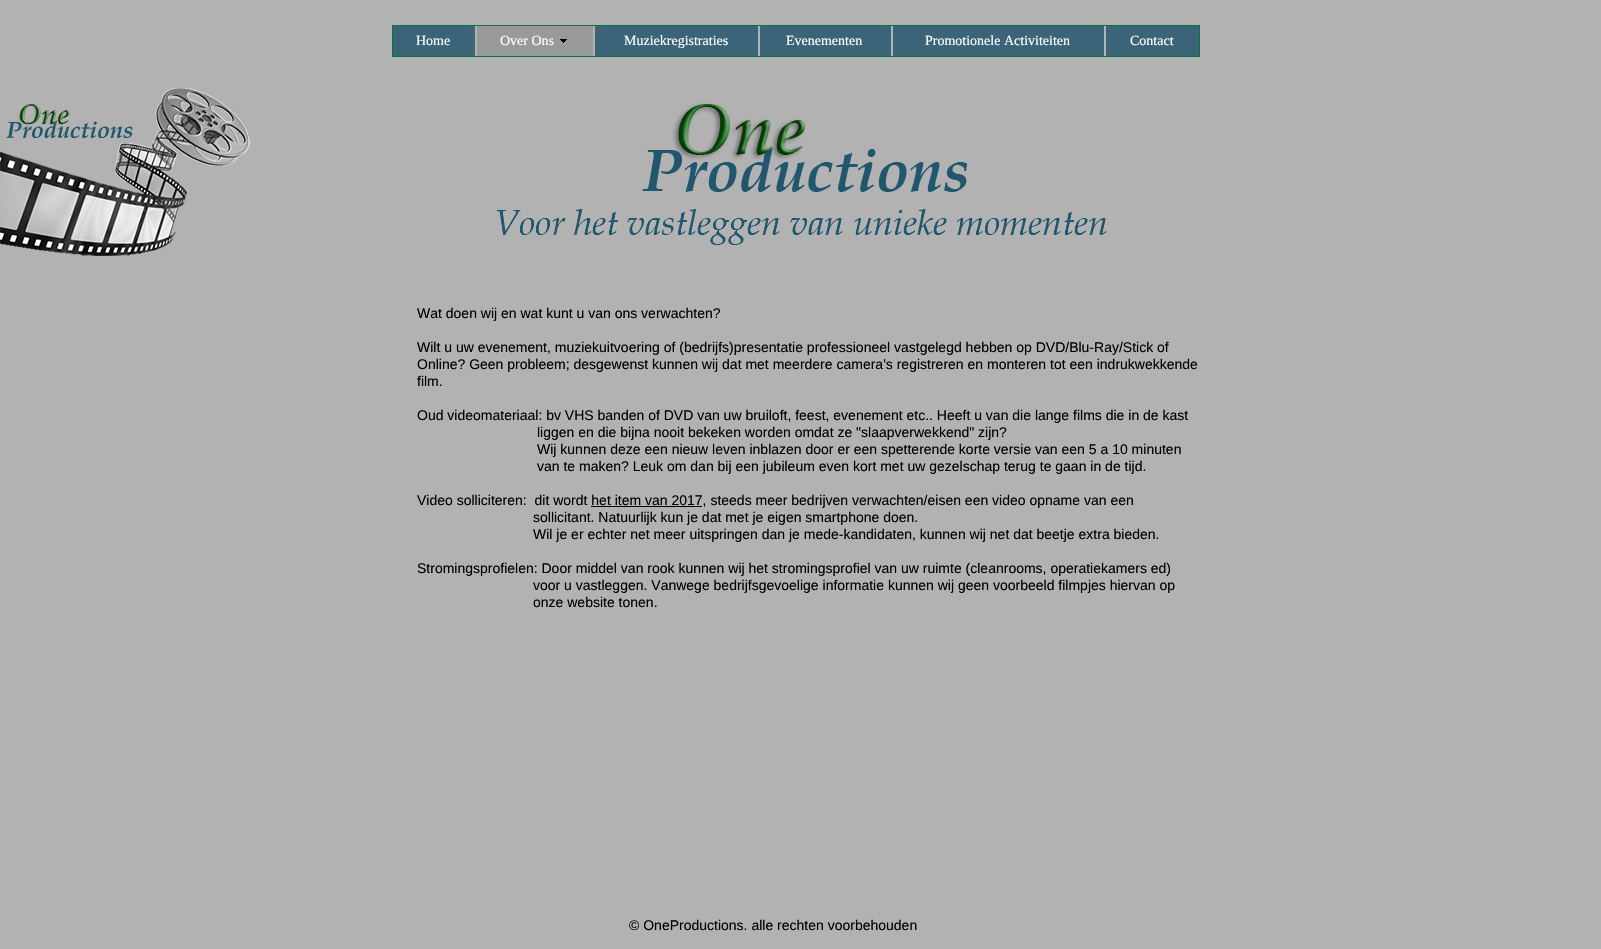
#include "include/core/SkBlurTypes.h"
#include "include/core/SkCanvas.h"
#include "include/core/SkData.h"
#include "include/core/SkFont.h"
#include "include/core/SkFontMgr.h"
#include "include/core/SkImage.h"
#include "include/core/SkMaskFilter.h"
#include "include/core/SkPaint.h"
#include "include/core/SkPathBuilder.h"
#include "include/core/SkTextBlob.h"
#include "include/effects/SkDashPathEffect.h"
#include "include/effects/SkGradientShader.h"
#include "include/utils/SkParsePath.h"

extern sk_sp<SkFontMgr> fontMgr;

static SkFont font(const char* family, int weight, float size, bool italic = false) {
    SkFontStyle style(weight, SkFontStyle::kNormal_Width,
        italic ? SkFontStyle::kItalic_Slant : SkFontStyle::kUpright_Slant);
    SkFont result(fontMgr->matchFamilyStyle(family, style), size);
    result.setSubpixel(true);
    return result;
}

static void drawLabel(SkCanvas* canvas, const char* s, float x, float y, const SkFont& font, SkColor color) {
    SkPaint ink(SkColor4f::FromColor(color));
    ink.setAntiAlias(true);
    canvas->drawString(s, x, y, font, ink);
}

static void fillRect(SkCanvas* canvas, float x, float y, float w, float h, SkColor color) {
    SkPaint ink(SkColor4f::FromColor(color));
    ink.setAntiAlias(true);
    canvas->drawRect(SkRect::MakeXYWH(x, y, w, h), ink);
}

static void drawPhoto(SkCanvas* canvas, const char* path, float x, float y, float w, float h) {
    auto image = SkImages::DeferredFromEncodedData(SkData::MakeFromFileName(path));
    canvas->drawImageRect(image, SkRect::MakeXYWH(x, y, w, h), SkSamplingOptions());
}

void draw(SkCanvas* canvas) {
    SkPaint paint;
    paint.setAntiAlias(true);
    canvas->clear(0xFFB2B2B2);
    paint.setStroke(true);
    paint.setStrokeWidth(1);
    paint.setColor(0xFF007A37);
    canvas->drawRect(SkRect::MakeXYWH(392.5f, 25.5f, 807, 31), paint);
    fillRect(canvas, 393, 26, 82, 30, 0xFF3B6478);
    SkFont font1 = font("Liberation Serif", 400, 14);
    drawLabel(canvas, "Home", 416, 45, font1, 0xFFFFFFFF);
    fillRect(canvas, 477, 26, 116, 30, 0xFF999999);
    drawLabel(canvas, "Over Ons", 500, 45, font1, 0xFFFFFFFF);
    drawPhoto(canvas, "assets/img1.png", 560, 39, 7, 4);
    fillRect(canvas, 595, 26, 163, 30, 0xFF3B6478);
    drawLabel(canvas, "Muziekregistraties", 624, 45, font1, 0xFFFFFFFF);
    fillRect(canvas, 760, 26, 131, 30, 0xFF3B6478);
    drawLabel(canvas, "Evenementen", 786, 45, font1, 0xFFFFFFFF);
    fillRect(canvas, 893, 26, 211, 30, 0xFF3B6478);
    drawLabel(canvas, "Promotionele Activiteiten", 925, 45, font1, 0xFFFFFFFF);
    fillRect(canvas, 1106, 26, 93, 30, 0xFF3B6478);
    drawLabel(canvas, "Contact", 1130, 45, font1, 0xFFFFFFFF);
    drawPhoto(canvas, "assets/img2.png", 0, 88, 250, 168);
    drawPhoto(canvas, "assets/img3.png", 642, 103, 326, 89);
    drawPhoto(canvas, "assets/img4.png", 496, 209, 611, 36);
    SkFont font2 = font("Liberation Sans", 400, 14);
    drawLabel(canvas, "Wat doen wij en wat kunt u van ons verwachten?", 417, 318, font2, 0xFF000000);
    drawLabel(canvas, "Wilt u uw evenement, muziekuitvoering of (bedrijfs)presentatie professioneel vastgelegd hebben op DVD/Blu-Ray/Stick of", 417, 352, font2, 0xFF000000);
    drawLabel(canvas, "Online? Geen probleem; desgewenst kunnen wij dat met meerdere camera's registreren en monteren tot een indrukwekkende", 417, 369, font2, 0xFF000000);
    drawLabel(canvas, "film.", 417, 386, font2, 0xFF000000);
    drawLabel(canvas, "Oud videomateriaal: bv VHS banden of DVD van uw bruiloft, feest, evenement etc.. Heeft u van die lange films die in de kast", 417, 420, font2, 0xFF000000);
    drawLabel(canvas, "liggen en die bijna nooit bekeken worden omdat ze \"slaapverwekkend\" zijn?", 537, 437, font2, 0xFF000000);
    drawLabel(canvas, "Wij kunnen deze een nieuw leven inblazen door er een spetterende korte versie van een 5 a 10 minuten", 537, 454, font2, 0xFF000000);
    drawLabel(canvas, "van te maken? Leuk om dan bij een jubileum even kort met uw gezelschap terug te gaan in de tijd.", 537, 471, font2, 0xFF000000);
    drawLabel(canvas, "Video solliciteren:  dit wordt het item van 2017, steeds meer bedrijven verwachten/eisen een video opname van een", 417, 505, font2, 0xFF000000);
    fillRect(canvas, 591, 506, 111, 1, 0xFF000000);
    drawLabel(canvas, "sollicitant. Natuurlijk kun je dat met je eigen smartphone doen.", 533, 522, font2, 0xFF000000);
    drawLabel(canvas, "Wil je er echter net meer uitspringen dan je mede-kandidaten, kunnen wij net dat beetje extra bieden.", 533, 539, font2, 0xFF000000);
    drawLabel(canvas, "Stromingsprofielen: Door middel van rook kunnen wij het stromingsprofiel van uw ruimte (cleanrooms, operatiekamers ed)", 417, 573, font2, 0xFF000000);
    drawLabel(canvas, "voor u vastleggen. Vanwege bedrijfsgevoelige informatie kunnen wij geen voorbeeld filmpjes hiervan op", 533, 590, font2, 0xFF000000);
    drawLabel(canvas, "onze website tonen.", 533, 607, font2, 0xFF000000);
    drawLabel(canvas, "© OneProductions. alle rechten voorbehouden", 629, 930, font2, 0xFF000000);
}
